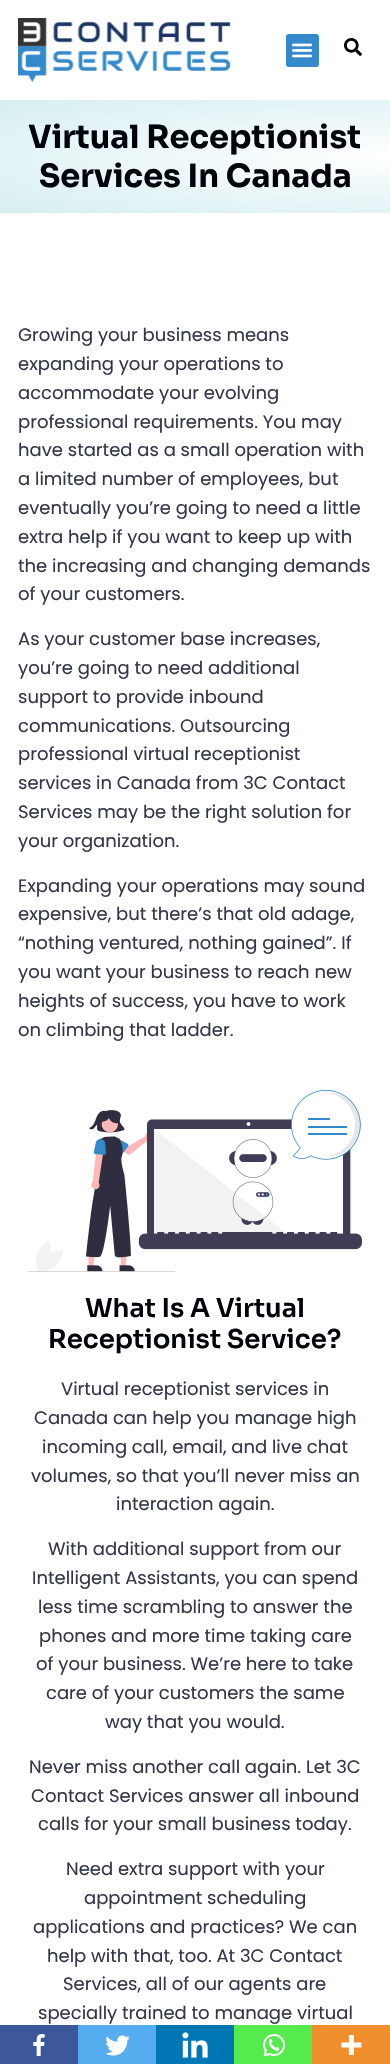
#include "include/core/SkBlurTypes.h"
#include "include/core/SkCanvas.h"
#include "include/core/SkData.h"
#include "include/core/SkFont.h"
#include "include/core/SkFontMgr.h"
#include "include/core/SkImage.h"
#include "include/core/SkMaskFilter.h"
#include "include/core/SkPaint.h"
#include "include/core/SkPathBuilder.h"
#include "include/core/SkTextBlob.h"
#include "include/effects/SkDashPathEffect.h"
#include "include/effects/SkGradientShader.h"
#include "include/utils/SkParsePath.h"

extern sk_sp<SkFontMgr> fontMgr;

static SkFont font(const char* family, int weight, float size, bool italic = false) {
    SkFontStyle style(weight, SkFontStyle::kNormal_Width,
        italic ? SkFontStyle::kItalic_Slant : SkFontStyle::kUpright_Slant);
    SkFont result(fontMgr->matchFamilyStyle(family, style), size);
    result.setSubpixel(true);
    return result;
}

static void drawLabel(SkCanvas* canvas, const char* s, float x, float y, const SkFont& font, SkColor color) {
    SkPaint ink(SkColor4f::FromColor(color));
    ink.setAntiAlias(true);
    canvas->drawString(s, x, y, font, ink);
}

static void fillRect(SkCanvas* canvas, float x, float y, float w, float h, SkColor color) {
    SkPaint ink(SkColor4f::FromColor(color));
    ink.setAntiAlias(true);
    canvas->drawRect(SkRect::MakeXYWH(x, y, w, h), ink);
}

static void fillRRect(SkCanvas* canvas, float x, float y, float w, float h, float radius, SkColor color) {
    SkPaint ink(SkColor4f::FromColor(color));
    ink.setAntiAlias(true);
    canvas->drawRoundRect(SkRect::MakeXYWH(x, y, w, h), radius, radius, ink);
}

static void drawPhoto(SkCanvas* canvas, const char* path, float x, float y, float w, float h) {
    auto image = SkImages::DeferredFromEncodedData(SkData::MakeFromFileName(path));
    canvas->drawImageRect(image, SkRect::MakeXYWH(x, y, w, h), SkSamplingOptions());
}

void draw(SkCanvas* canvas) {
    SkPaint paint;
    paint.setAntiAlias(true);
    canvas->clear(0xFFFFFFFF);
    drawPhoto(canvas, "assets/img1.png", 18, 18, 213, 64);
    fillRRect(canvas, 286, 34, 33, 33, 3, 0xFF3389C9);
    drawPhoto(canvas, "assets/img2.png", 291, 43, 22, 15);
    drawPhoto(canvas, "assets/img3.png", 344, 38, 18, 18);
    {
        const SkColor colors[] = {0xFFFFFFFF, 0xFFD6EEF1};
        const float stops[] = {0, 1};
        SkMatrix m = SkMatrix::Translate(390, 157).preScale(552, 80);
        paint.setShader(SkGradientShader::MakeRadial({0, 0}, 1, colors, stops, 2, SkTileMode::kClamp, 0, &m));
        paint.setAlpha(255);
    }
    canvas->drawRect(SkRect::MakeXYWH(0, 100, 390, 113), paint);
    SkFont font1 = font("Sora", 700, 32);
    drawLabel(canvas, "Virtual Receptionist", 28, 148, font1, 0xFF00030A);
    drawLabel(canvas, "Services In Canada", 39, 187, font1, 0xFF00030A);
    SkFont font2 = font("Poppins", 400, 18);
    drawLabel(canvas, "Growing your business means", 18, 341, font2, 0xFF333748);
    drawLabel(canvas, "expanding your operations to", 18, 370, font2, 0xFF333748);
    drawLabel(canvas, "accommodate your evolving", 18, 399, font2, 0xFF333748);
    drawLabel(canvas, "professional requirements. You may", 18, 428, font2, 0xFF333748);
    drawLabel(canvas, "have started as a small operation with", 18, 456, font2, 0xFF333748);
    drawLabel(canvas, "a limited number of employees, but", 18, 485, font2, 0xFF333748);
    drawLabel(canvas, "eventually you’re going to need a little", 18, 514, font2, 0xFF333748);
    drawLabel(canvas, "extra help if you want to keep up with", 18, 543, font2, 0xFF333748);
    drawLabel(canvas, "the increasing and changing demands", 18, 572, font2, 0xFF333748);
    drawLabel(canvas, "of your customers.", 18, 600, font2, 0xFF333748);
    drawLabel(canvas, "As your customer base increases,", 18, 645, font2, 0xFF333748);
    drawLabel(canvas, "you’re going to need additional", 18, 674, font2, 0xFF333748);
    drawLabel(canvas, "support to provide inbound", 18, 703, font2, 0xFF333748);
    drawLabel(canvas, "communications. Outsourcing", 18, 732, font2, 0xFF333748);
    drawLabel(canvas, "professional virtual receptionist", 18, 760, font2, 0xFF333748);
    drawLabel(canvas, "services in Canada from 3C Contact", 18, 789, font2, 0xFF333748);
    drawLabel(canvas, "Services may be the right solution for", 18, 818, font2, 0xFF333748);
    drawLabel(canvas, "your organization.", 18, 847, font2, 0xFF333748);
    drawLabel(canvas, "Expanding your operations may sound", 18, 892, font2, 0xFF333748);
    drawLabel(canvas, "expensive, but there’s that old adage,", 18, 920, font2, 0xFF333748);
    drawLabel(canvas, "“nothing ventured, nothing gained”. If", 18, 949, font2, 0xFF333748);
    drawLabel(canvas, "you want your business to reach new", 18, 978, font2, 0xFF333748);
    drawLabel(canvas, "heights of success, you have to work", 18, 1007, font2, 0xFF333748);
    drawLabel(canvas, "on climbing that ladder.", 18, 1036, font2, 0xFF333748);
    drawPhoto(canvas, "assets/img4.png", 28, 1090, 334, 182);
    SkFont font3 = font("Sora", 600, 26);
    drawLabel(canvas, "What Is A Virtual", 85, 1317, font3, 0xFF00030A);
    drawLabel(canvas, "Receptionist Service?", 48, 1348, font3, 0xFF00030A);
    drawLabel(canvas, "Virtual receptionist services in", 61, 1395, font2, 0xFF333748);
    drawLabel(canvas, "Canada can help you manage high", 34, 1424, font2, 0xFF333748);
    drawLabel(canvas, "incoming call, email, and live chat", 42, 1453, font2, 0xFF333748);
    drawLabel(canvas, "volumes, so that you’ll never miss an", 31, 1482, font2, 0xFF333748);
    drawLabel(canvas, "interaction again.", 116, 1510, font2, 0xFF333748);
    drawLabel(canvas, "With additional support from our", 48, 1555, font2, 0xFF333748);
    drawLabel(canvas, "Intelligent Assistants, you can spend", 32, 1584, font2, 0xFF333748);
    drawLabel(canvas, "less time scrambling to answer the", 38, 1613, font2, 0xFF333748);
    drawLabel(canvas, "phones and more time taking care", 39, 1642, font2, 0xFF333748);
    drawLabel(canvas, "of your business. We’re here to take", 36, 1670, font2, 0xFF333748);
    drawLabel(canvas, "care of your customers the same", 46, 1699, font2, 0xFF333748);
    drawLabel(canvas, "way that you would.", 105, 1728, font2, 0xFF333748);
    drawLabel(canvas, "Never miss another call again. Let 3C", 29, 1773, font2, 0xFF333748);
    drawLabel(canvas, "Contact Services answer all inbound", 31, 1802, font2, 0xFF333748);
    drawLabel(canvas, "calls for your small business today.", 38, 1830, font2, 0xFF333748);
    drawLabel(canvas, "Need extra support with your", 66, 1875, font2, 0xFF333748);
    drawLabel(canvas, "appointment scheduling", 84, 1904, font2, 0xFF333748);
    drawLabel(canvas, "applications and practices? We can", 33, 1933, font2, 0xFF333748);
    drawLabel(canvas, "help with that, too. At 3C Contact", 47, 1962, font2, 0xFF333748);
    drawLabel(canvas, "Services, all of our agents are", 63, 1990, font2, 0xFF333748);
    drawLabel(canvas, "specially trained to manage virtual", 38, 2019, font2, 0xFF333748);
    fillRect(canvas, 0, 2025, 78, 39, 0xFF3C589A);
    drawPhoto(canvas, "assets/img5.png", 33, 2034, 12, 22);
    fillRect(canvas, 78, 2025, 78, 39, 0xFF55ACEE);
    drawPhoto(canvas, "assets/img6.png", 105, 2035, 25, 21);
    fillRect(canvas, 156, 2025, 78, 39, 0xFF0077B5);
    drawPhoto(canvas, "assets/img7.png", 182, 2032, 26, 26);
    fillRect(canvas, 234, 2025, 78, 39, 0xFF55EB4C);
    drawPhoto(canvas, "assets/img8.png", 263, 2034, 22, 23);
    fillRect(canvas, 312, 2025, 78, 39, 0xFFEE8E2D);
    drawPhoto(canvas, "assets/img9.png", 341, 2035, 21, 20);
}
